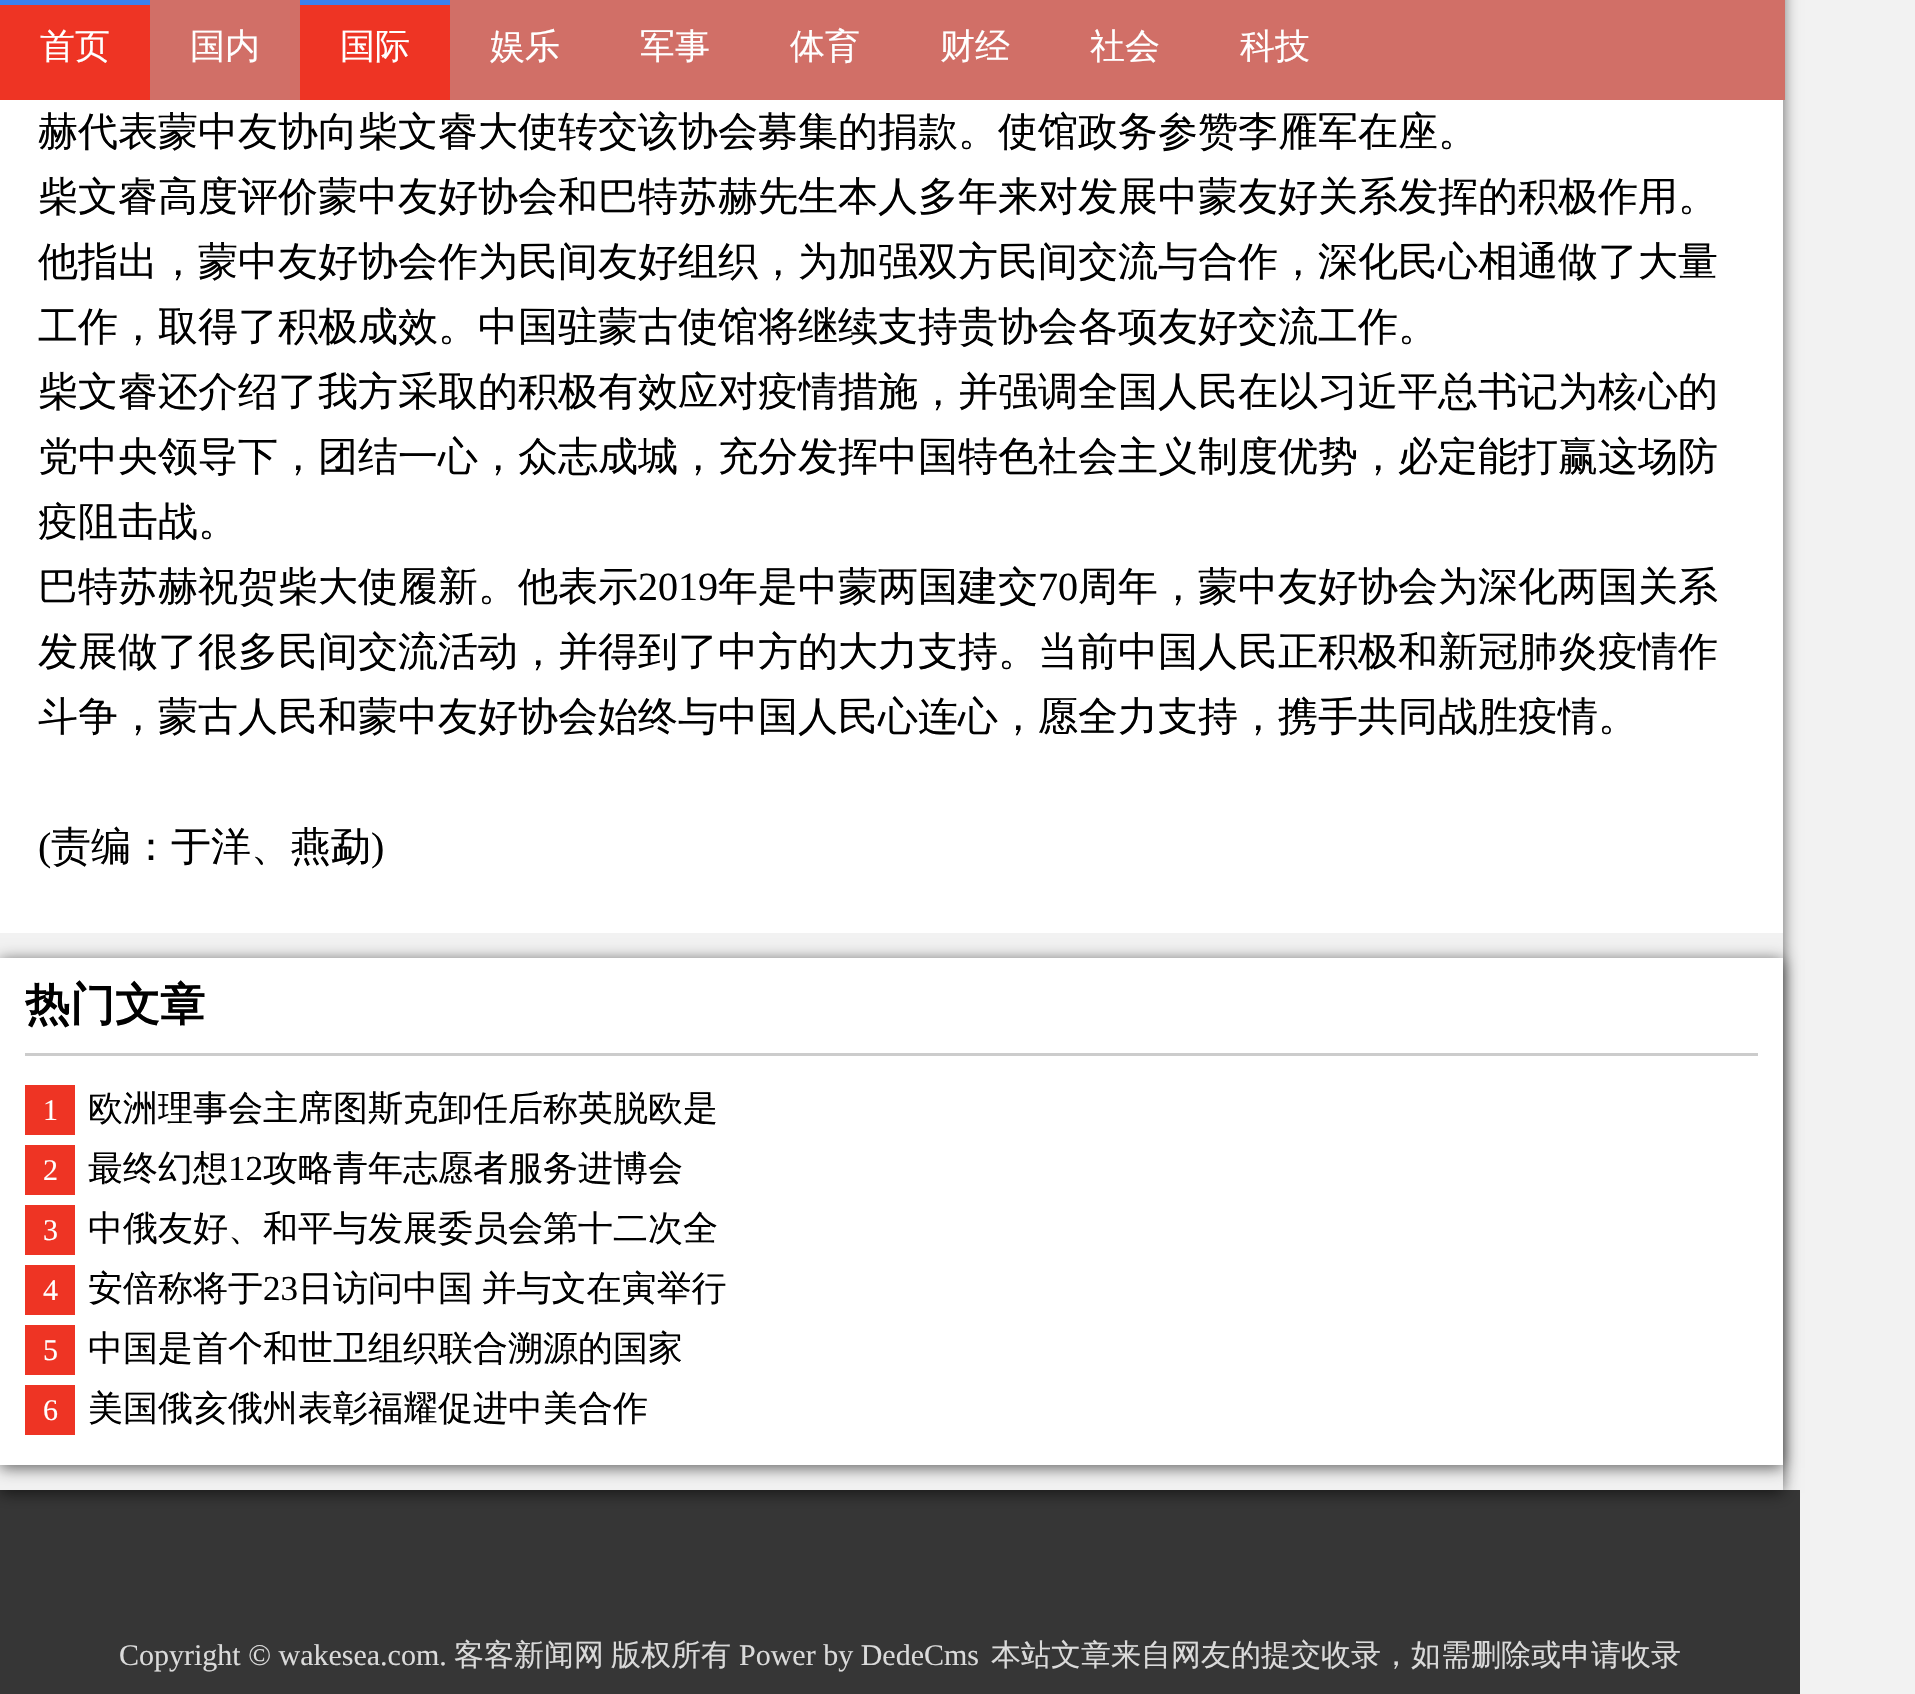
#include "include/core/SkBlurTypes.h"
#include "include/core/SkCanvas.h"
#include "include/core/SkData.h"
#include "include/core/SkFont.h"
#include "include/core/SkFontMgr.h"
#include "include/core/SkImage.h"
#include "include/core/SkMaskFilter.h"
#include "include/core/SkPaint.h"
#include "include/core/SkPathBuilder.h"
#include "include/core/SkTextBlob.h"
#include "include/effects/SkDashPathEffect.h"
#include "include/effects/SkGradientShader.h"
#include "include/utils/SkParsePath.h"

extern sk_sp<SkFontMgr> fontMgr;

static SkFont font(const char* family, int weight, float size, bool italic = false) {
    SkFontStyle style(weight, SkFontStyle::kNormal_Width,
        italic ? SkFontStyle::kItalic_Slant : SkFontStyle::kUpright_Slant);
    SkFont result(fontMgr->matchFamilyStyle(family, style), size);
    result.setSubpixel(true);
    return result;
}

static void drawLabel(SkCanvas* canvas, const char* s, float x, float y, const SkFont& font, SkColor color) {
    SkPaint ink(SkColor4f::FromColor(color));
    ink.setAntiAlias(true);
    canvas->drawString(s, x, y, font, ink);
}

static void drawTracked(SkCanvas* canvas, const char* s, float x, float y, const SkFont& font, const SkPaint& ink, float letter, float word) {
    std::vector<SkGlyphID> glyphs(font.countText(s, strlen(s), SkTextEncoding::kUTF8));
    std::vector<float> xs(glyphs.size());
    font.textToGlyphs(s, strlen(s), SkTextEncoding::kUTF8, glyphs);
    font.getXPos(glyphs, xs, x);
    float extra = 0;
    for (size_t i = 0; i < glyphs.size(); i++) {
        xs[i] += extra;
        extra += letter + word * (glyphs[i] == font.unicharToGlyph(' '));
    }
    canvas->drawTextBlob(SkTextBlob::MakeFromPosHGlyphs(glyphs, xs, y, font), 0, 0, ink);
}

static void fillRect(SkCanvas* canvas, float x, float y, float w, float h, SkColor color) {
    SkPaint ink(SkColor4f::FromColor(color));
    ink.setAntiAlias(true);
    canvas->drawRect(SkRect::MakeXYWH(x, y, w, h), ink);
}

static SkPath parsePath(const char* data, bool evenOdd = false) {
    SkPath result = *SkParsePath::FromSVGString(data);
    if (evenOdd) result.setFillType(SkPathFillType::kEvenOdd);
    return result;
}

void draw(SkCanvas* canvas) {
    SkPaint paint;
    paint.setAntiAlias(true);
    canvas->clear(0xFFF2F2F2);
    fillRect(canvas, 0, 1490, 1800, 204, 0xFF363636);
    canvas->save();
    canvas->clipPath(parsePath("M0 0H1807V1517H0ZM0-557H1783V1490H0Z", true), true);
    paint.setColor(0x99000000);
    paint.setMaskFilter(SkMaskFilter::MakeBlur(kNormal_SkBlurStyle, 7.5f));
    canvas->drawRect(SkRect::MakeXYWH(0, -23, 1783, 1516), paint);
    paint.setMaskFilter(nullptr);
    canvas->restore();
    fillRect(canvas, 150, 0, 1635, 100, 0xFFD16F67);
    fillRect(canvas, 0, 5, 150, 95, 0xFFEE3424);
    fillRect(canvas, 0, 0, 150, 5, 0xFF3B80EE);
    SkFont font1 = font("WenQuanYi Zen Hei", 500, 35);
    drawLabel(canvas, "首页", 40, 58, font1, 0xFFFFFFFF);
    drawLabel(canvas, "国内", 190, 58, font1, 0xFFFFFFFF);
    fillRect(canvas, 300, 5, 150, 95, 0xFFEE3424);
    fillRect(canvas, 300, 0, 150, 5, 0xFF3B80EE);
    drawLabel(canvas, "国际", 340, 58, font1, 0xFFFFFFFF);
    drawLabel(canvas, "娱乐", 490, 58, font1, 0xFFFFFFFF);
    drawLabel(canvas, "军事", 640, 58, font1, 0xFFFFFFFF);
    drawLabel(canvas, "体育", 790, 58, font1, 0xFFFFFFFF);
    drawLabel(canvas, "财经", 940, 58, font1, 0xFFFFFFFF);
    drawLabel(canvas, "社会", 1090, 58, font1, 0xFFFFFFFF);
    drawLabel(canvas, "科技", 1240, 58, font1, 0xFFFFFFFF);
    fillRect(canvas, 0, 100, 1783, 833, 0xFFFFFFFF);
    SkFont font2 = font("WenQuanYi Zen Hei", 500, 40);
    drawLabel(canvas, "赫代表蒙中友协向柴文睿大使转交该协会募集的捐款。使馆政务参赞李雁军在座。", 38, 145, font2, 0xFF000000);
    drawLabel(canvas, "柴文睿高度评价蒙中友好协会和巴特苏赫先生本人多年来对发展中蒙友好关系发挥的积极作用。", 38, 210, font2, 0xFF000000);
    drawLabel(canvas, "他指出，蒙中友好协会作为民间友好组织，为加强双方民间交流与合作，深化民心相通做了大量", 38, 275, font2, 0xFF000000);
    drawLabel(canvas, "工作，取得了积极成效。中国驻蒙古使馆将继续支持贵协会各项友好交流工作。", 38, 340, font2, 0xFF000000);
    drawLabel(canvas, "柴文睿还介绍了我方采取的积极有效应对疫情措施，并强调全国人民在以习近平总书记为核心的", 38, 405, font2, 0xFF000000);
    drawLabel(canvas, "党中央领导下，团结一心，众志成城，充分发挥中国特色社会主义制度优势，必定能打赢这场防", 38, 470, font2, 0xFF000000);
    drawLabel(canvas, "疫阻击战。", 38, 535, font2, 0xFF000000);
    drawLabel(canvas, "巴特苏赫祝贺柴大使履新。他表示", 38, 600, font2, 0xFF000000);
    SkFont font3 = font("Liberation Serif", 400, 40);
    drawLabel(canvas, "2019", 638, 600, font3, 0xFF000000);
    drawLabel(canvas, "年是中蒙两国建交", 718, 600, font2, 0xFF000000);
    drawLabel(canvas, "70", 1038, 600, font3, 0xFF000000);
    drawLabel(canvas, "周年，蒙中友好协会为深化两国关系", 1078, 600, font2, 0xFF000000);
    drawLabel(canvas, "发展做了很多民间交流活动，并得到了中方的大力支持。当前中国人民正积极和新冠肺炎疫情作", 38, 665, font2, 0xFF000000);
    drawLabel(canvas, "斗争，蒙古人民和蒙中友好协会始终与中国人民心连心，愿全力支持，携手共同战胜疫情。", 38, 730, font2, 0xFF000000);
    drawLabel(canvas, "(", 38, 860, font3, 0xFF000000);
    drawLabel(canvas, "责编：于洋、燕勐", 51, 860, font2, 0xFF000000);
    drawLabel(canvas, ")", 371, 860, font3, 0xFF000000);
    paint.setMaskFilter(SkMaskFilter::MakeBlur(kNormal_SkBlurStyle, 7.5f));
    canvas->drawRect(SkRect::MakeXYWH(0, 960, 1783, 508), paint);
    paint.setMaskFilter(nullptr);
    fillRect(canvas, 0, 958, 1783, 507, 0xFFFFFFFF);
    fillRect(canvas, 25, 1053, 1733, 3, 0xFFCCCCCC);
    SkFont font4 = font("WenQuanYi Zen Hei", 700, 45);
    drawLabel(canvas, "热门文章", 25, 1020, font4, 0xFF000000);
    fillRect(canvas, 25, 1085, 50, 50, 0xFFEE3424);
    SkFont font5 = font("Liberation Serif", 400, 30);
    drawLabel(canvas, "1", 43, 1120, font5, 0xFFFFFFFF);
    drawLabel(canvas, "欧洲理事会主席图斯克卸任后称英脱欧是", 88, 1120, font1, 0xFF000000);
    fillRect(canvas, 25, 1145, 50, 50, 0xFFEE3424);
    drawLabel(canvas, "2", 43, 1180, font5, 0xFFFFFFFF);
    drawLabel(canvas, "最终幻想", 88, 1180, font1, 0xFF000000);
    SkFont font6 = font("Liberation Serif", 400, 35);
    drawLabel(canvas, "12", 228, 1180, font6, 0xFF000000);
    drawLabel(canvas, "攻略青年志愿者服务进博会", 263, 1180, font1, 0xFF000000);
    fillRect(canvas, 25, 1205, 50, 50, 0xFFEE3424);
    drawLabel(canvas, "3", 43, 1240, font5, 0xFFFFFFFF);
    drawLabel(canvas, "中俄友好、和平与发展委员会第十二次全", 88, 1240, font1, 0xFF000000);
    fillRect(canvas, 25, 1265, 50, 50, 0xFFEE3424);
    drawLabel(canvas, "4", 43, 1300, font5, 0xFFFFFFFF);
    drawLabel(canvas, "安倍称将于", 88, 1300, font1, 0xFF000000);
    drawLabel(canvas, "23", 263, 1300, font6, 0xFF000000);
    paint.setColor(0xFF000000);
    drawTracked(canvas, "日访问中国 并与文在寅举行", 298, 1300, font1, paint, 0, -2);
    fillRect(canvas, 25, 1325, 50, 50, 0xFFEE3424);
    drawLabel(canvas, "5", 43, 1360, font5, 0xFFFFFFFF);
    drawLabel(canvas, "中国是首个和世卫组织联合溯源的国家", 88, 1360, font1, 0xFF000000);
    fillRect(canvas, 25, 1385, 50, 50, 0xFFEE3424);
    drawLabel(canvas, "6", 43, 1420, font5, 0xFFFFFFFF);
    drawLabel(canvas, "美国俄亥俄州表彰福耀促进中美合作", 88, 1420, font1, 0xFF000000);
    drawLabel(canvas, "Copyright © wakesea.com.", 119, 1665, font5, 0xFFDADADA);
    SkFont font7 = font("WenQuanYi Zen Hei", 500, 30);
    drawLabel(canvas, "客客新闻网", 454, 1665, font7, 0xFFDADADA);
    drawLabel(canvas, "版权所有", 611, 1665, font7, 0xFFDADADA);
    drawLabel(canvas, "Power by DedeCms", 739, 1665, font5, 0xFFDADADA);
    drawLabel(canvas, "本站文章来自网友的提交收录，如需删除或申请收录", 991, 1665, font7, 0xFFDADADA);
}
